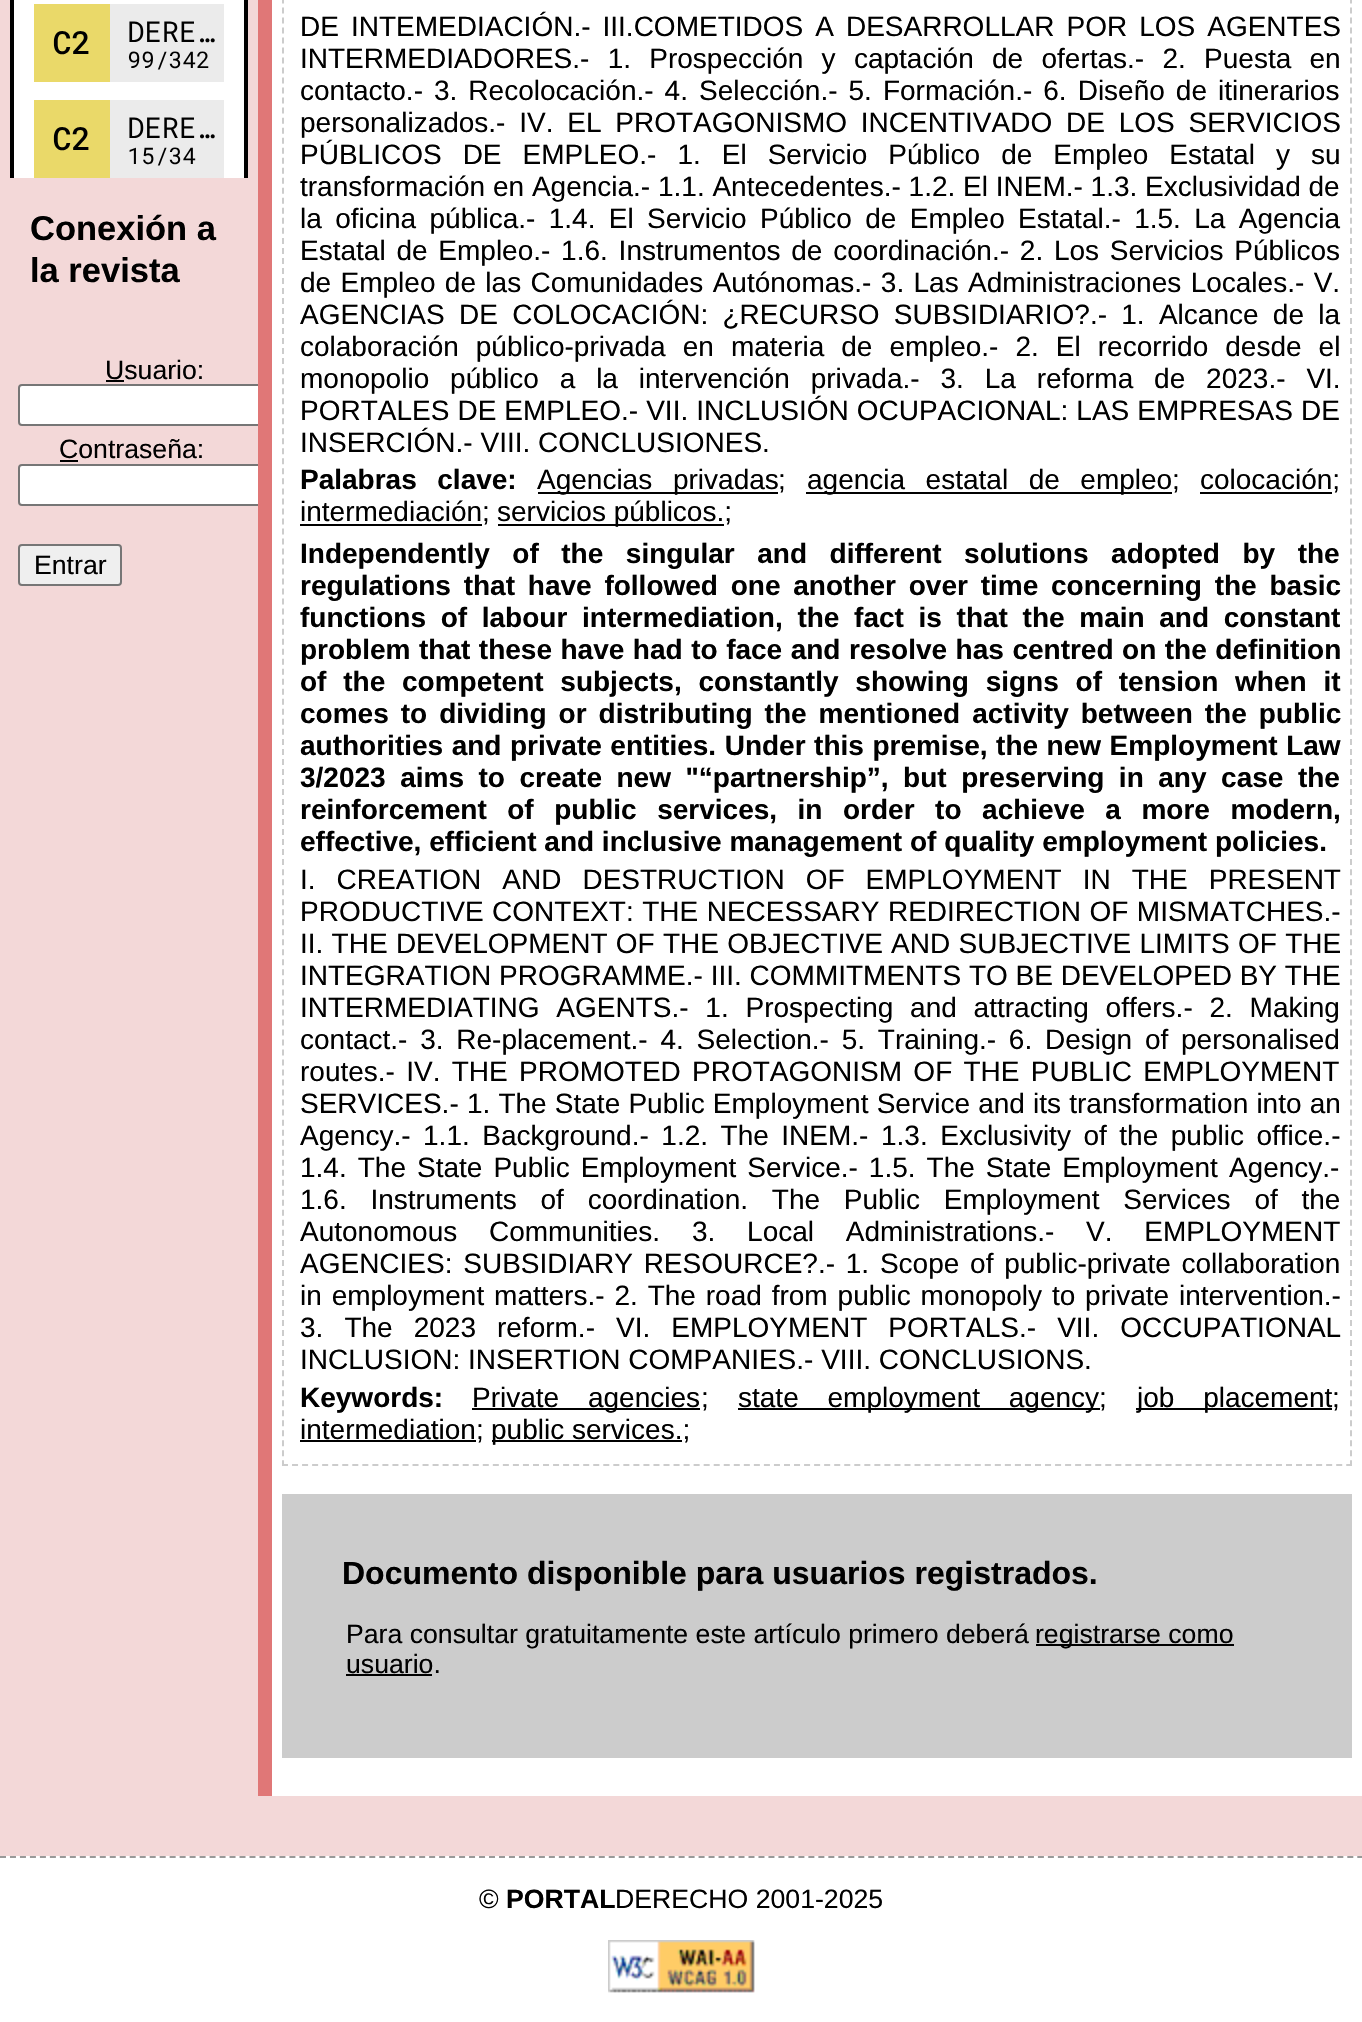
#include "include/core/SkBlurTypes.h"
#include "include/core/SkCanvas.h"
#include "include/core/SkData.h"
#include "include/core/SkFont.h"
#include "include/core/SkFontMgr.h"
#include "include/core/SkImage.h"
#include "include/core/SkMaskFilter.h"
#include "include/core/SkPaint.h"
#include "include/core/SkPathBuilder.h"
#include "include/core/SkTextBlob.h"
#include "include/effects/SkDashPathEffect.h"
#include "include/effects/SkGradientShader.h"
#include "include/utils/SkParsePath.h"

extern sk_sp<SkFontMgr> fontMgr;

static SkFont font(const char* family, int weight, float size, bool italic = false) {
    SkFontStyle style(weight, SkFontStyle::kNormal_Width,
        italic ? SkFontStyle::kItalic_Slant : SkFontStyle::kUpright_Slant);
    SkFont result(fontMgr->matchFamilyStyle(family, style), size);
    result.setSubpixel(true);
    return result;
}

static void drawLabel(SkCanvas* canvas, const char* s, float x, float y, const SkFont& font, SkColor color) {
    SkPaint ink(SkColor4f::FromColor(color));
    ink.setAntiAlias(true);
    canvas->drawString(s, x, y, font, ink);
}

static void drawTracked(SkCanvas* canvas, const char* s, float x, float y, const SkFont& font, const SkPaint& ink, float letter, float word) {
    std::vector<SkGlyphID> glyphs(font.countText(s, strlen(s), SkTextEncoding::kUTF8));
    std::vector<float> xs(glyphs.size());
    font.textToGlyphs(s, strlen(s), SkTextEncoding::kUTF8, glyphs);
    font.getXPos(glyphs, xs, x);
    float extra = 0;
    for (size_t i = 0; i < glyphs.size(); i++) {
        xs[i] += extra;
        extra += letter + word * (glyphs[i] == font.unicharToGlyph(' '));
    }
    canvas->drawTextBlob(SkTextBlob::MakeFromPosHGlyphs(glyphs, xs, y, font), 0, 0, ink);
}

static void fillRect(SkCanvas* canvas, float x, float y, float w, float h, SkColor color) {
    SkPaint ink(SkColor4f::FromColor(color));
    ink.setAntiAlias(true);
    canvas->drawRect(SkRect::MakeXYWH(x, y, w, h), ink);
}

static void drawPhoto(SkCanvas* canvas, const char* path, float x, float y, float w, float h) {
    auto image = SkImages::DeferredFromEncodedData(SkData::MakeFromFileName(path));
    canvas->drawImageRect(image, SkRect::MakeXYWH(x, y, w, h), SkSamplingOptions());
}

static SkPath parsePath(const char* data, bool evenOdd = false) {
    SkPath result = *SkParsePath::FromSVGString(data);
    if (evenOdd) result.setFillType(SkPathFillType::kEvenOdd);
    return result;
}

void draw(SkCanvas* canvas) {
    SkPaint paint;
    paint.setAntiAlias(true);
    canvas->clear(0xFFFFFFFF);
    paint.setStroke(true);
    paint.setStrokeWidth(2);
    paint.setColor(0xFF999999);
    paint.setPathEffect(SkDashPathEffect::Make({{6, 3.98f}}, 0));
    canvas->drawPath(parsePath("M0 1857H1362"), paint);
    paint.setPathEffect(nullptr);
    fillRect(canvas, 0, 0, 1362, 1856, 0xFFF3D8D8);
    drawPhoto(canvas, "assets/img1.png", 10, 0, 238, 178);
    SkFont font1 = font("Liberation Sans", 700, 34.5f);
    drawLabel(canvas, "Conexión a", 30, 240, font1, 0xFF000000);
    drawLabel(canvas, "la revista", 30, 282, font1, 0xFF000000);
    SkFont font2 = font("Liberation Sans", 400, 26.65f);
    drawLabel(canvas, "Usuario:", 105, 379, font2, 0xFF000000);
    fillRect(canvas, 106, 380, 18, 2, 0xFF000000);
    paint.setStroke(false);
    paint.setColor(0xFFFFFFFF);
    canvas->drawRoundRect(SkRect::MakeXYWH(19, 385, 288, 40), 3, 3, paint);
    paint.setStroke(true);
    paint.setColor(0xFF767676);
    canvas->drawRoundRect(SkRect::MakeXYWH(19, 385, 288, 40), 3, 3, paint);
    drawLabel(canvas, "Contraseña:", 59, 458, font2, 0xFF000000);
    fillRect(canvas, 60, 460, 18, 2, 0xFF000000);
    paint.setStroke(false);
    paint.setColor(0xFFFFFFFF);
    canvas->drawRoundRect(SkRect::MakeXYWH(19, 465, 288, 40), 3, 3, paint);
    paint.setStroke(true);
    paint.setColor(0xFF767676);
    canvas->drawRoundRect(SkRect::MakeXYWH(19, 465, 288, 40), 3, 3, paint);
    paint.setStroke(false);
    paint.setColor(0xFFEFEFEF);
    canvas->drawRoundRect(SkRect::MakeXYWH(19, 545, 102, 40), 3, 3, paint);
    paint.setStroke(true);
    paint.setColor(0xFF767676);
    canvas->drawRoundRect(SkRect::MakeXYWH(19, 545, 102, 40), 3, 3, paint);
    drawLabel(canvas, "Entrar", 34, 574, font2, 0xFF000000);
    fillRect(canvas, 258, 0, 14, 1796, 0xFFE07777);
    fillRect(canvas, 272, 0, 1090, 1796, 0xFFFFFFFF);
    paint.setColor(0xFFCCCCCC);
    paint.setPathEffect(SkDashPathEffect::Make({{6, 4.02f}}, 0));
    canvas->drawPath(parsePath("M1351-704V1466"), paint);
    paint.setPathEffect(nullptr);
    paint.setPathEffect(SkDashPathEffect::Make({{6, 4.04f}}, 0));
    canvas->drawPath(parsePath("M282 1465H1352"), paint);
    paint.setPathEffect(nullptr);
    paint.setPathEffect(SkDashPathEffect::Make({{6, 4.02f}}, 0));
    canvas->drawPath(parsePath("M283-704V1466"), paint);
    paint.setPathEffect(nullptr);
    SkFont font3 = font("Liberation Sans", 400, 28);
    paint.setStroke(false);
    paint.setColor(0xFF000000);
    drawTracked(canvas, "DE INTEMEDIACIÓN.- III.COMETIDOS A DESARROLLAR POR LOS AGENTES", 300, 36, font3, paint, 0, 4.25f);
    drawTracked(canvas, "INTERMEDIADORES.- 1. Prospección y captación de ofertas.- 2. Puesta en", 300, 68, font3, paint, 0, 10.5f);
    drawTracked(canvas, "contacto.- 3. Recolocación.- 4. Selección.- 5. Formación.- 6. Diseño de itinerarios", 300, 100, font3, paint, 0, 3.25f);
    drawTracked(canvas, "personalizados.- IV. EL PROTAGONISMO INCENTIVADO DE LOS SERVICIOS", 300, 132, font3, paint, 0, 6);
    drawTracked(canvas, "PÚBLICOS DE EMPLEO.- 1. El Servicio Público de Empleo Estatal y su", 300, 164, font3, paint, 0, 13.25f);
    drawLabel(canvas, "transformación en Agencia.- 1.1. Antecedentes.- 1.2. El INEM.- 1.3. Exclusividad de", 300, 196, font3, 0xFF000000);
    drawTracked(canvas, "la oficina pública.- 1.4. El Servicio Público de Empleo Estatal.- 1.5. La Agencia", 300, 228, font3, paint, 0, 5.6f);
    drawTracked(canvas, "Estatal de Empleo.- 1.6. Instrumentos de coordinación.- 2. Los Servicios Públicos", 300, 260, font3, paint, 0, 3);
    drawTracked(canvas, "de Empleo de las Comunidades Autónomas.- 3. Las Administraciones Locales.- V.", 300, 292, font3, paint, 0, 1.6f);
    drawTracked(canvas, "AGENCIAS DE COLOCACIÓN: ¿RECURSO SUBSIDIARIO?.- 1. Alcance de la", 300, 324, font3, paint, 0, 6.5f);
    drawTracked(canvas, "colaboración público-privada en materia de empleo.- 2. El recorrido desde el", 300, 356, font3, paint, 0, 9.25f);
    drawTracked(canvas, "monopolio público a la intervención privada.- 3. La reforma de 2023.- VI.", 300, 388, font3, paint, 0, 13.1f);
    drawTracked(canvas, "PORTALES DE EMPLEO.- VII. INCLUSIÓN OCUPACIONAL: LAS EMPRESAS DE", 300, 420, font3, paint, 0, 0.25f);
    drawLabel(canvas, "INSERCIÓN.- VIII. CONCLUSIONES.", 300, 452, font3, 0xFF000000);
    SkFont font4 = font("Liberation Sans", 700, 28);
    drawTracked(canvas, "Palabras clave:", 300, 489, font4, paint, 0, 12.75f);
    fillRect(canvas, 538, 492, 240, 2, 0xFF000000);
    drawTracked(canvas, "Agencias privadas", 537, 489, font3, paint, 0, 13);
    drawLabel(canvas, ";", 778, 489, font3, 0xFF000000);
    fillRect(canvas, 806, 492, 366, 2, 0xFF000000);
    drawTracked(canvas, "agencia estatal de empleo", 807, 489, font3, paint, 0, 12.75f);
    drawLabel(canvas, ";", 1172, 489, font3, 0xFF000000);
    fillRect(canvas, 1200, 492, 132, 2, 0xFF000000);
    drawLabel(canvas, "colocación;", 1200, 489, font3, 0xFF000000);
    fillRect(canvas, 300, 524, 182, 2, 0xFF000000);
    drawLabel(canvas, "intermediación;", 300, 521, font3, 0xFF000000);
    fillRect(canvas, 498, 524, 226, 2, 0xFF000000);
    drawLabel(canvas, "servicios públicos.;", 497, 521, font3, 0xFF000000);
    drawTracked(canvas, "Independently of the singular and different solutions adopted by the", 300, 563, font4, paint, 0, 14.75f);
    drawTracked(canvas, "regulations that have followed one another over time concerning the basic", 300, 595, font4, paint, 0, 5);
    drawTracked(canvas, "functions of labour intermediation, the fact is that the main and constant", 300, 627, font4, paint, 0, 6.9f);
    drawTracked(canvas, "problem that these have had to face and resolve has centred on the definition", 300, 659, font4, paint, 0, 0.75f);
    drawTracked(canvas, "of the competent subjects, constantly showing signs of tension when it", 300, 691, font4, paint, 0, 9);
    drawTracked(canvas, "comes to dividing or distributing the mentioned activity between the public", 300, 723, font4, paint, 0, 4.25f);
    drawTracked(canvas, "authorities and private entities. Under this premise, the new Employment Law", 300, 755, font4, paint, 0, 0.75f);
    drawTracked(canvas, "3/2023 aims to create new \"“partnership”, but preserving in any case the", 300, 787, font4, paint, 0, 6.75f);
    drawTracked(canvas, "reinforcement of public services, in order to achieve a more modern,", 300, 819, font4, paint, 0, 12.75f);
    drawLabel(canvas, "effective, efficient and inclusive management of quality employment policies.", 300, 851, font4, 0xFF000000);
    drawTracked(canvas, "I. CREATION AND DESTRUCTION OF EMPLOYMENT IN THE PRESENT", 300, 889, font3, paint, 0, 13.25f);
    drawTracked(canvas, "PRODUCTIVE CONTEXT: THE NECESSARY REDIRECTION OF MISMATCHES.-", 300, 921, font3, paint, 0, 0.75f);
    drawTracked(canvas, "II. THE DEVELOPMENT OF THE OBJECTIVE AND SUBJECTIVE LIMITS OF THE", 300, 953, font3, paint, 0, 0.5f);
    drawLabel(canvas, "INTEGRATION PROGRAMME.- III. COMMITMENTS TO BE DEVELOPED BY THE", 300, 985, font3, 0xFF000000);
    drawTracked(canvas, "INTERMEDIATING AGENTS.- 1. Prospecting and attracting offers.- 2. Making", 300, 1017, font3, paint, 0, 9);
    drawTracked(canvas, "contact.- 3. Re-placement.- 4. Selection.- 5. Training.- 6. Design of personalised", 300, 1049, font3, paint, 0, 5);
    drawTracked(canvas, "routes.- IV. THE PROMOTED PROTAGONISM OF THE PUBLIC EMPLOYMENT", 300, 1081, font3, paint, 0, 3.5f);
    drawTracked(canvas, "SERVICES.- 1. The State Public Employment Service and its transformation into an", 300, 1113, font3, paint, 0, 0.4f);
    drawTracked(canvas, "Agency.- 1.1. Background.- 1.2. The INEM.- 1.3. Exclusivity of the public office.-", 300, 1145, font3, paint, 0, 4.75f);
    drawTracked(canvas, "1.4. The State Public Employment Service.- 1.5. The State Employment Agency.-", 300, 1177, font3, paint, 0, 3.25f);
    drawTracked(canvas, "1.6. Instruments of coordination. The Public Employment Services of the", 300, 1209, font3, paint, 0, 16);
    drawTracked(canvas, "Autonomous Communities. 3. Local Administrations.- V. EMPLOYMENT", 300, 1241, font3, paint, 0, 24);
    drawTracked(canvas, "AGENCIES: SUBSIDIARY RESOURCE?.- 1. Scope of public-private collaboration", 300, 1273, font3, paint, 0, 3);
    drawTracked(canvas, "in employment matters.- 2. The road from public monopoly to private intervention.-", 300, 1305, font3, paint, 0, 2.1f);
    drawTracked(canvas, "3. The 2023 reform.- VI. EMPLOYMENT PORTALS.- VII. OCCUPATIONAL", 300, 1337, font3, paint, 0, 13.25f);
    drawLabel(canvas, "INCLUSION: INSERTION COMPANIES.- VIII. CONCLUSIONS.", 300, 1369, font3, 0xFF000000);
    drawLabel(canvas, "Keywords:", 300, 1407, font4, 0xFF000000);
    fillRect(canvas, 472, 1408, 228, 2, 0xFF000000);
    drawTracked(canvas, "Private agencies", 472, 1407, font3, paint, 0, 21);
    drawLabel(canvas, ";", 701, 1407, font3, 0xFF000000);
    fillRect(canvas, 738, 1408, 362, 2, 0xFF000000);
    drawTracked(canvas, "state employment agency", 738, 1407, font3, paint, 0, 21);
    drawLabel(canvas, ";", 1099, 1407, font3, 0xFF000000);
    fillRect(canvas, 1136, 1408, 196, 2, 0xFF000000);
    drawTracked(canvas, "job placement", 1137, 1407, font3, paint, 0, 21);
    drawLabel(canvas, ";", 1332, 1407, font3, 0xFF000000);
    fillRect(canvas, 300, 1440, 176, 2, 0xFF000000);
    drawLabel(canvas, "intermediation;", 300, 1439, font3, 0xFF000000);
    fillRect(canvas, 492, 1440, 190, 2, 0xFF000000);
    drawLabel(canvas, "public services.;", 491, 1439, font3, 0xFF000000);
    fillRect(canvas, 282, 1494, 1070, 264, 0xFFCCCCCC);
    SkFont font5 = font("Liberation Sans", 700, 32);
    drawLabel(canvas, "Documento disponible para usuarios registrados.", 342, 1584, font5, 0xFF000000);
    drawLabel(canvas, "Para consultar gratuitamente este artículo primero deberá", 346, 1643, font2, 0xFF000000);
    fillRect(canvas, 1036, 1644, 198, 2, 0xFF000000);
    drawLabel(canvas, "registrarse como", 1035, 1643, font2, 0xFF000000);
    drawLabel(canvas, "usuario.", 346, 1673, font2, 0xFF000000);
    fillRect(canvas, 346, 1674, 86, 2, 0xFF000000);
    drawLabel(canvas, "©", 479, 1908, font2, 0xFF000000);
    SkFont font6 = font("Liberation Sans", 700, 26.65f);
    drawLabel(canvas, "PORTAL", 506, 1908, font6, 0xFF000000);
    drawLabel(canvas, "DERECHO 2001-2025", 615, 1908, font2, 0xFF000000);
    drawPhoto(canvas, "assets/img2.png", 608, 1940, 147, 53);
}
